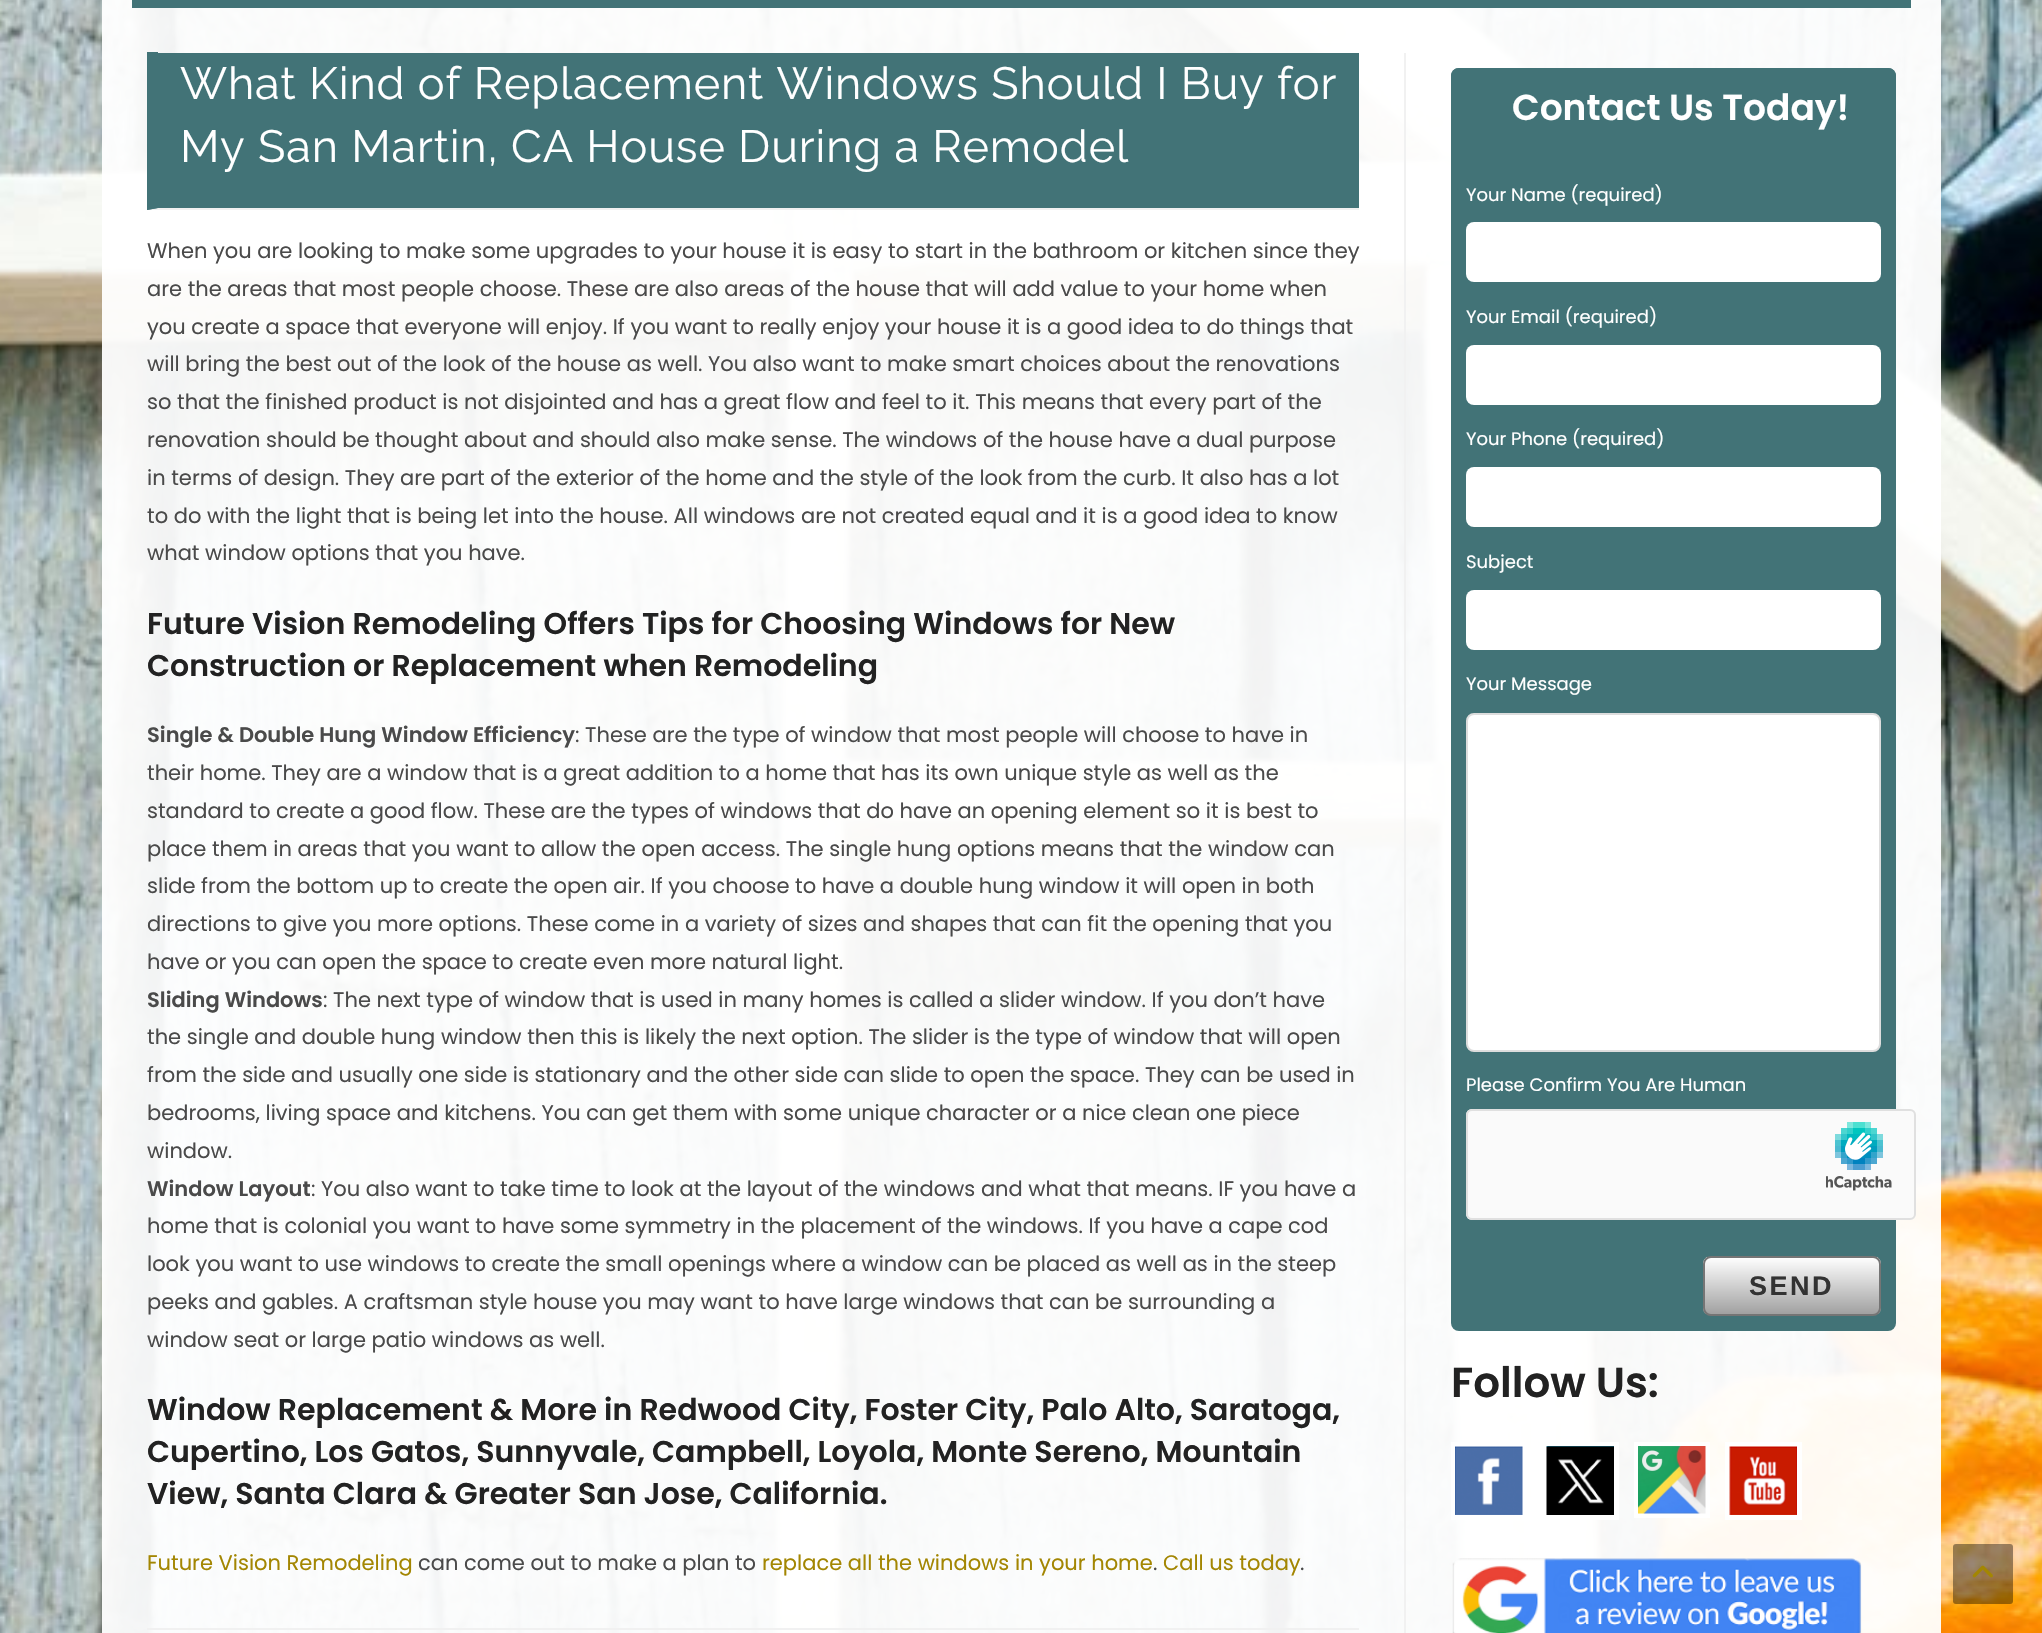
#include "include/core/SkBlurTypes.h"
#include "include/core/SkCanvas.h"
#include "include/core/SkData.h"
#include "include/core/SkFont.h"
#include "include/core/SkFontMgr.h"
#include "include/core/SkImage.h"
#include "include/core/SkMaskFilter.h"
#include "include/core/SkPaint.h"
#include "include/core/SkPathBuilder.h"
#include "include/core/SkTextBlob.h"
#include "include/effects/SkDashPathEffect.h"
#include "include/effects/SkGradientShader.h"
#include "include/utils/SkParsePath.h"

extern sk_sp<SkFontMgr> fontMgr;

static SkFont font(const char* family, int weight, float size, bool italic = false) {
    SkFontStyle style(weight, SkFontStyle::kNormal_Width,
        italic ? SkFontStyle::kItalic_Slant : SkFontStyle::kUpright_Slant);
    SkFont result(fontMgr->matchFamilyStyle(family, style), size);
    result.setSubpixel(true);
    return result;
}

static void drawLabel(SkCanvas* canvas, const char* s, float x, float y, const SkFont& font, SkColor color) {
    SkPaint ink(SkColor4f::FromColor(color));
    ink.setAntiAlias(true);
    canvas->drawString(s, x, y, font, ink);
}

static void drawTracked(SkCanvas* canvas, const char* s, float x, float y, const SkFont& font, const SkPaint& ink, float letter, float word) {
    std::vector<SkGlyphID> glyphs(font.countText(s, strlen(s), SkTextEncoding::kUTF8));
    std::vector<float> xs(glyphs.size());
    font.textToGlyphs(s, strlen(s), SkTextEncoding::kUTF8, glyphs);
    font.getXPos(glyphs, xs, x);
    float extra = 0;
    for (size_t i = 0; i < glyphs.size(); i++) {
        xs[i] += extra;
        extra += letter + word * (glyphs[i] == font.unicharToGlyph(' '));
    }
    canvas->drawTextBlob(SkTextBlob::MakeFromPosHGlyphs(glyphs, xs, y, font), 0, 0, ink);
}

static void fillRect(SkCanvas* canvas, float x, float y, float w, float h, SkColor color) {
    SkPaint ink(SkColor4f::FromColor(color));
    ink.setAntiAlias(true);
    canvas->drawRect(SkRect::MakeXYWH(x, y, w, h), ink);
}

static void fillRRect(SkCanvas* canvas, float x, float y, float w, float h, float radius, SkColor color) {
    SkPaint ink(SkColor4f::FromColor(color));
    ink.setAntiAlias(true);
    canvas->drawRoundRect(SkRect::MakeXYWH(x, y, w, h), radius, radius, ink);
}

static void drawPhoto(SkCanvas* canvas, const char* path, float x, float y, float w, float h) {
    auto image = SkImages::DeferredFromEncodedData(SkData::MakeFromFileName(path));
    canvas->drawImageRect(image, SkRect::MakeXYWH(x, y, w, h), SkSamplingOptions());
}

static SkPath parsePath(const char* data, bool evenOdd = false) {
    SkPath result = *SkParsePath::FromSVGString(data);
    if (evenOdd) result.setFillType(SkPathFillType::kEvenOdd);
    return result;
}

void draw(SkCanvas* canvas) {
    SkPaint paint;
    paint.setAntiAlias(true);
    canvas->clear(0xFFFFFFFF);
    drawPhoto(canvas, "assets/img1.png", 0, 0, 2042, 1633);
    fillRect(canvas, 102, 0, 1839, 8, 0xF2FFFFFF);
    fillRect(canvas, 132, 0, 1779, 8, 0xFF427377);
    fillRect(canvas, 102, 8, 1839, 1625, 0xF2FFFFFF);
    fillRect(canvas, 1404, 53, 2, 1580, 0xFFF1F1F1);
    fillRect(canvas, 147, 53, 1212, 157, 0xFF427377);
    paint.setColor(0xFFF1F1F1);
    canvas->drawPath(parsePath("M1359 210H147L158 208H1359Z"), paint);
    paint.setColor(0xFF427377);
    canvas->drawPath(parsePath("M147 210V52H158V208Z"), paint);
    SkFont font1 = font("Raleway", 400, 45);
    paint.setColor(0xFFFFFFFF);
    drawTracked(canvas, "What Kind of Replacement Windows Should I Buy for", 180, 99, font1, paint, 0.9f, 0);
    drawTracked(canvas, "My San Martin, CA House During a Remodel", 180, 162, font1, paint, 0.9f, 0);
    SkFont font2 = font("Poppins", 400, 21);
    drawLabel(canvas, "When you are looking to make some upgrades to your house it is easy to start in the bathroom or kitchen since they", 147, 258, font2, 0xFF4A4A4A);
    drawLabel(canvas, "are the areas that most people choose. These are also areas of the house that will add value to your home when", 147, 296, font2, 0xFF4A4A4A);
    drawLabel(canvas, "you create a space that everyone will enjoy. If you want to really enjoy your house it is a good idea to do things that", 147, 334, font2, 0xFF4A4A4A);
    drawLabel(canvas, "will bring the best out of the look of the house as well. You also want to make smart choices about the renovations", 147, 371, font2, 0xFF4A4A4A);
    drawLabel(canvas, "so that the finished product is not disjointed and has a great flow and feel to it. This means that every part of the", 147, 409, font2, 0xFF4A4A4A);
    drawLabel(canvas, "renovation should be thought about and should also make sense. The windows of the house have a dual purpose", 147, 447, font2, 0xFF4A4A4A);
    drawLabel(canvas, "in terms of design. They are part of the exterior of the home and the style of the look from the curb. It also has a lot", 147, 485, font2, 0xFF4A4A4A);
    drawLabel(canvas, "to do with the light that is being let into the house. All windows are not created equal and it is a good idea to know", 147, 523, font2, 0xFF4A4A4A);
    drawLabel(canvas, "what window options that you have.", 147, 560, font2, 0xFF4A4A4A);
    SkFont font3 = font("Poppins", 600, 30);
    drawLabel(canvas, "Future Vision Remodeling Offers Tips for Choosing Windows for New", 147, 634, font3, 0xFF222222);
    drawLabel(canvas, "Construction or Replacement when Remodeling", 147, 676, font3, 0xFF222222);
    SkFont font4 = font("Poppins", 600, 21);
    drawLabel(canvas, "Single & Double Hung Window Efficiency", 147, 742, font4, 0xFF4A4A4A);
    drawLabel(canvas, ": These are the type of window that most people will choose to have in", 575, 742, font2, 0xFF4A4A4A);
    drawLabel(canvas, "their home. They are a window that is a great addition to a home that has its own unique style as well as the", 147, 780, font2, 0xFF4A4A4A);
    drawLabel(canvas, "standard to create a good flow. These are the types of windows that do have an opening element so it is best to", 147, 818, font2, 0xFF4A4A4A);
    drawLabel(canvas, "place them in areas that you want to allow the open access. The single hung options means that the window can", 147, 856, font2, 0xFF4A4A4A);
    drawLabel(canvas, "slide from the bottom up to create the open air. If you choose to have a double hung window it will open in both", 147, 893, font2, 0xFF4A4A4A);
    drawLabel(canvas, "directions to give you more options. These come in a variety of sizes and shapes that can fit the opening that you", 147, 931, font2, 0xFF4A4A4A);
    drawLabel(canvas, "have or you can open the space to create even more natural light.", 147, 969, font2, 0xFF4A4A4A);
    drawLabel(canvas, "Sliding Windows", 147, 1007, font4, 0xFF4A4A4A);
    drawLabel(canvas, ": The next type of window that is used in many homes is called a slider window. If you don’t have", 323, 1007, font2, 0xFF4A4A4A);
    drawLabel(canvas, "the single and double hung window then this is likely the next option. The slider is the type of window that will open", 147, 1044, font2, 0xFF4A4A4A);
    drawLabel(canvas, "from the side and usually one side is stationary and the other side can slide to open the space. They can be used in", 147, 1082, font2, 0xFF4A4A4A);
    drawLabel(canvas, "bedrooms, living space and kitchens. You can get them with some unique character or a nice clean one piece", 147, 1120, font2, 0xFF4A4A4A);
    drawLabel(canvas, "window.", 147, 1158, font2, 0xFF4A4A4A);
    drawLabel(canvas, "Window Layout", 147, 1196, font4, 0xFF4A4A4A);
    drawLabel(canvas, ": You also want to take time to look at the layout of the windows and what that means. IF you have a", 311, 1196, font2, 0xFF4A4A4A);
    drawLabel(canvas, "home that is colonial you want to have some symmetry in the placement of the windows. If you have a cape cod", 147, 1233, font2, 0xFF4A4A4A);
    drawLabel(canvas, "look you want to use windows to create the small openings where a window can be placed as well as in the steep", 147, 1271, font2, 0xFF4A4A4A);
    drawLabel(canvas, "peeks and gables. A craftsman style house you may want to have large windows that can be surrounding a", 147, 1309, font2, 0xFF4A4A4A);
    drawLabel(canvas, "window seat or large patio windows as well.", 147, 1347, font2, 0xFF4A4A4A);
    drawLabel(canvas, "Window Replacement & More in Redwood City, Foster City, Palo Alto, Saratoga,", 147, 1420, font3, 0xFF222222);
    drawLabel(canvas, "Cupertino, Los Gatos, Sunnyvale, Campbell, Loyola, Monte Sereno, Mountain", 147, 1462, font3, 0xFF222222);
    drawLabel(canvas, "View, Santa Clara & Greater San Jose, California.", 147, 1504, font3, 0xFF222222);
    drawLabel(canvas, "Future Vision Remodeling", 147, 1570, font2, 0xFFA38602);
    drawLabel(canvas, "can come out to make a plan to", 418, 1570, font2, 0xFF4A4A4A);
    drawLabel(canvas, "replace all the windows in your home", 762, 1570, font2, 0xFFA38602);
    drawLabel(canvas, ".", 1153, 1570, font2, 0xFF4A4A4A);
    drawLabel(canvas, "Call us today", 1163, 1570, font2, 0xFFA38602);
    drawLabel(canvas, ".", 1300, 1570, font2, 0xFF4A4A4A);
    fillRect(canvas, 147, 1628, 1212, 2, 0xFFF1F1F1);
    fillRRect(canvas, 1451, 68, 445, 1263, 8, 0xFF427377);
    paint.setColor(0xFF427377);
    canvas->drawPath(parsePath("M1459 68H1888C1892.5 68 1896 71.5 1896 76V149H1451V76C1451 71.5 1454.5 68 1459 68Z"), paint);
    SkFont font5 = font("Poppins", 600, 36);
    drawLabel(canvas, "Contact Us Today!", 1512, 120, font5, 0xFFFFFFFF);
    SkFont font6 = font("Poppins", 400, 18);
    drawLabel(canvas, "Your Name (required)", 1466, 201, font6, 0xFFFFFFFF);
    fillRRect(canvas, 1466, 222, 415, 60, 8, 0xFFFFFFFF);
    drawLabel(canvas, "Your Email (required)", 1466, 323, font6, 0xFFFFFFFF);
    fillRRect(canvas, 1466, 345, 415, 60, 8, 0xFFFFFFFF);
    drawLabel(canvas, "Your Phone (required)", 1466, 445, font6, 0xFFFFFFFF);
    fillRRect(canvas, 1466, 467, 415, 60, 8, 0xFFFFFFFF);
    drawLabel(canvas, "Subject", 1466, 568, font6, 0xFFFFFFFF);
    fillRRect(canvas, 1466, 590, 415, 60, 8, 0xFFFFFFFF);
    drawLabel(canvas, "Your Message", 1466, 690, font6, 0xFFFFFFFF);
    paint.setColor(0xFFFFFFFF);
    canvas->drawRoundRect(SkRect::MakeXYWH(1467, 714, 413, 337), 7, 7, paint);
    paint.setStroke(true);
    paint.setStrokeWidth(2);
    paint.setColor(0xFFDDDDDD);
    canvas->drawRoundRect(SkRect::MakeXYWH(1467, 714, 413, 337), 7, 7, paint);
    drawLabel(canvas, "Please Confirm You Are Human", 1466, 1091, font6, 0xFFFFFFFF);
    fillRRect(canvas, 1466, 1109, 450, 111, 6, 0xFFFAFAFA);
    drawPhoto(canvas, "assets/img2.png", 1826, 1122, 66, 69);
    paint.setColor(0xFFE0E0E0);
    canvas->drawRoundRect(SkRect::MakeXYWH(1467, 1110, 448, 109), 5, 5, paint);
    canvas->save();
    canvas->clipPath(parsePath("M1711 1256H1873C1877.5 1256 1881 1259.5 1881 1264V1308C1881 1312.5 1877.5 1316 1873 1316H1711C1706.5 1316 1703 1312.5 1703 1308V1264C1703 1259.5 1706.5 1256 1711 1256Z"), true);
    paint.setStroke(false);
    {
        const SkColor colors[] = {0xFFFFFFFF, 0xFFA1A1A1};
        const float stops[] = {0, 1};
        const SkPoint ends[] = {{1792, 1257}, {1792, 1314}};
        paint.setShader(SkGradientShader::MakeLinear(ends, colors, stops, 2, SkTileMode::kClamp));
        paint.setAlpha(255);
    }
    canvas->drawRect(SkRect::MakeXYWH(1703, 1257, 178, 57), paint);
    canvas->restore();
    paint.setStroke(true);
    paint.setShader(nullptr);
    paint.setColor(0xFF757575);
    canvas->drawRoundRect(SkRect::MakeXYWH(1704, 1257, 176, 58), 7, 7, paint);
    SkFont font7 = font("Liberation Sans", 700, 27);
    paint.setStroke(false);
    paint.setColor(0xFF333333);
    drawTracked(canvas, "SEND", 1749, 1295, font7, paint, 2.5f, 0);
    SkFont font8 = font("Poppins", 600, 42);
    drawLabel(canvas, "Follow Us:", 1451, 1397, font8, 0xFF222222);
    paint.setStroke(true);
    paint.setStrokeWidth(5);
    paint.setColor(0xFFFFFFFF);
    canvas->drawRect(SkRect::MakeXYWH(1453.5f, 1444.5f, 71, 73), paint);
    drawPhoto(canvas, "assets/img3.png", 1455, 1446, 68, 69);
    canvas->drawRect(SkRect::MakeXYWH(1544.5f, 1444.5f, 72, 73), paint);
    drawPhoto(canvas, "assets/img4.png", 1546, 1446, 68, 69);
    canvas->drawRect(SkRect::MakeXYWH(1636.5f, 1444.5f, 71, 71), paint);
    drawPhoto(canvas, "assets/img5.png", 1638, 1446, 68, 68);
    canvas->drawRect(SkRect::MakeXYWH(1727.5f, 1444.5f, 72, 73), paint);
    drawPhoto(canvas, "assets/img6.png", 1729, 1446, 68, 69);
    drawPhoto(canvas, "assets/img7.png", 1452, 1558, 410, 75);
    fillRRect(canvas, 1953, 1544, 60, 60, 3, 0x66000000);
    drawPhoto(canvas, "assets/img8.png", 1972, 1565, 21, 13);
}
